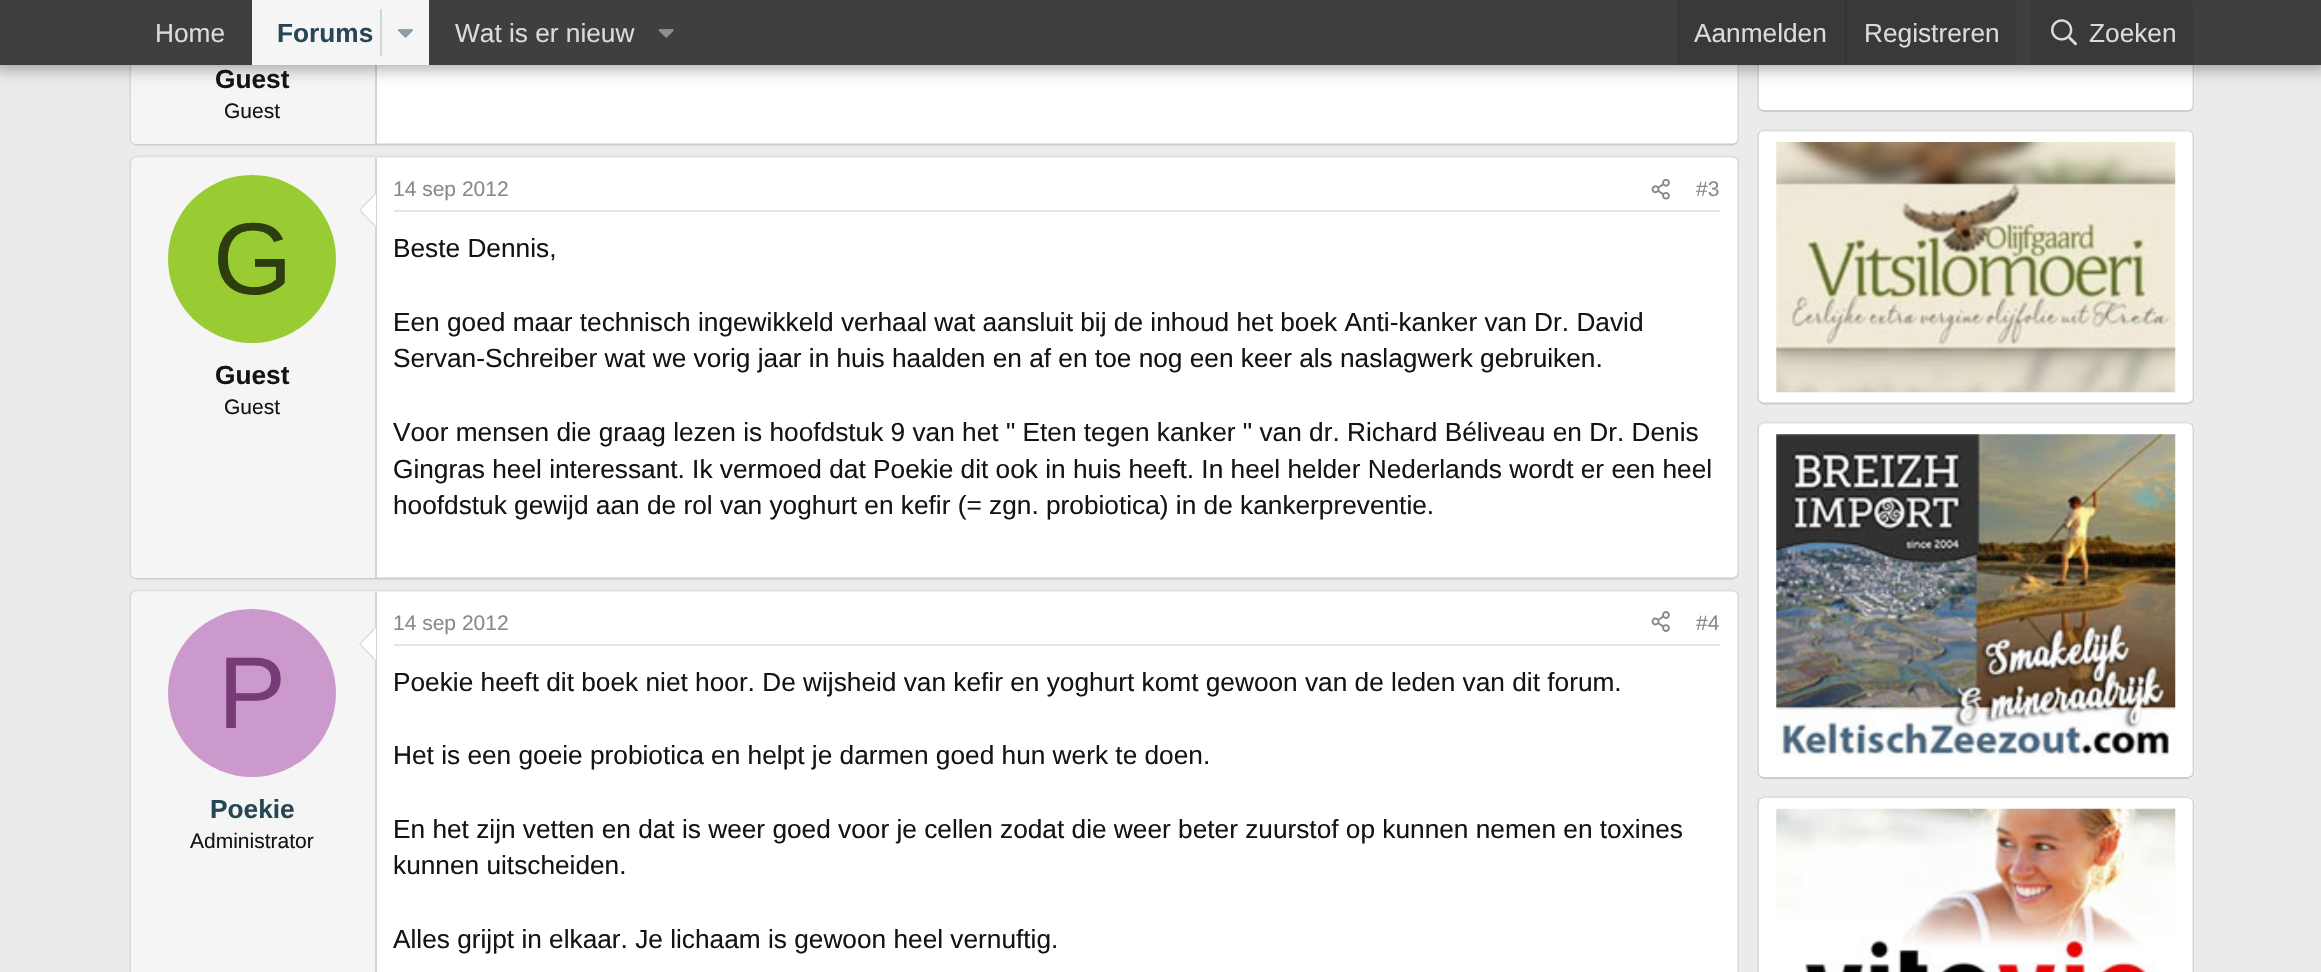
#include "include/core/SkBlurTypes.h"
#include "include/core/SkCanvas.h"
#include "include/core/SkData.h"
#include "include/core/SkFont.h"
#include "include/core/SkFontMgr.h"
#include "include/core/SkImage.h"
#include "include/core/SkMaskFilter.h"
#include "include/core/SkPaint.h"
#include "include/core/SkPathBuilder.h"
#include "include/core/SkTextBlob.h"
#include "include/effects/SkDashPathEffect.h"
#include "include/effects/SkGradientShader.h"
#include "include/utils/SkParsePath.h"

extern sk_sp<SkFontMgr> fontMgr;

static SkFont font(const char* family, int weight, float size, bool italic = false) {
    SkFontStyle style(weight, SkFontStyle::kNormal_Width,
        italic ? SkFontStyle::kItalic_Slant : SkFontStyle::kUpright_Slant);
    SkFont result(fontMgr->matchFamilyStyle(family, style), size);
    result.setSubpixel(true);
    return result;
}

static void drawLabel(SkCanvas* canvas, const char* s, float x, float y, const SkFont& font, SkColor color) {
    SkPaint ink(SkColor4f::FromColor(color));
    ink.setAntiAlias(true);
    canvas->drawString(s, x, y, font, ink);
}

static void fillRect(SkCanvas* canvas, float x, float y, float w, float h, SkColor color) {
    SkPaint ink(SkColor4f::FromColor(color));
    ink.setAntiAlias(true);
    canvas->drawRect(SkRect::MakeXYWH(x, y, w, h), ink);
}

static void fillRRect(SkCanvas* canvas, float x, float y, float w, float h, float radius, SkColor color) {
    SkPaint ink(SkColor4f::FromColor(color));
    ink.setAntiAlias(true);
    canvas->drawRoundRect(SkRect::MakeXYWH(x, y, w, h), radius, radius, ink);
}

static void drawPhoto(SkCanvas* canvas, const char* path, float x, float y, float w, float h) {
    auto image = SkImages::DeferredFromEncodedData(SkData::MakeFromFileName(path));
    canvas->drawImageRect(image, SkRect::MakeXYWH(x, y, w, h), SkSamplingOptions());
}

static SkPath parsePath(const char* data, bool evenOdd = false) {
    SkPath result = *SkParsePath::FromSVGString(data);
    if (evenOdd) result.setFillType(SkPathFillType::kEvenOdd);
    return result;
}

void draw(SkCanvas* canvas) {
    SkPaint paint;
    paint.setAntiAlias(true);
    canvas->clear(0xFFEBEBEB);
    fillRRect(canvas, 130, -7, 1610, 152, 7, 0xFFFFFFFF);
    paint.setStroke(true);
    paint.setStrokeWidth(1.8f);
    paint.setColor(0xFFD6D6D6);
    canvas->drawPath(parsePath("M1737-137.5C1738-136 1738.5-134.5 1738.5-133V138C1738.5 140 1738 141.5 1737 142.5"), paint);
    paint.setColor(0xFFCCCCCC);
    canvas->drawPath(parsePath("M1737 142.5C1735.5 143.5 1734 144.5 1732.5 144.5H136.5C135 144.5 133.5 143.5 132 142.5"), paint);
    paint.setColor(0xFFD6D6D6);
    canvas->drawPath(parsePath("M132 142.5C131 141.5 130.5 140 130.5 138V-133C130.5-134.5 131-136 132-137.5"), paint);
    paint.setStroke(false);
    paint.setColor(0xFFF5F5F5);
    canvas->drawPath(parsePath("M136-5H376V144H136C133 144 131 142 131 139V0C131-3 133-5 136-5Z"), paint);
    fillRect(canvas, 375, 65, 2, 79, 0xFFD6D6D6);
    fillRRect(canvas, 1757, -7, 438, 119, 7, 0xFFFFFFFF);
    paint.setStroke(true);
    paint.setColor(0xFFD6D6D6);
    canvas->drawPath(parsePath("M2192-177.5C2193-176.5 2193.5-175 2193.5-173V105C2193.5 106.5 2193 108 2192 109.5"), paint);
    paint.setColor(0xFFCCCCCC);
    canvas->drawPath(parsePath("M2192 109.5C2190.5 110.5 2189 111 2187.5 111H1764C1762.5 111 1761 110.5 1759.5 109.5"), paint);
    paint.setColor(0xFFD6D6D6);
    canvas->drawPath(parsePath("M1759.5 109.5C1758.5 108 1758 106.5 1758 105V-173C1758-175 1758.5-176.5 1759.5-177.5"), paint);
    paint.setStroke(false);
    paint.setColor(0x4D000000);
    paint.setMaskFilter(SkMaskFilter::MakeBlur(kNormal_SkBlurStyle, 7));
    canvas->drawRect(SkRect::MakeXYWH(-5, -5, 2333, 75), paint);
    paint.setMaskFilter(nullptr);
    fillRect(canvas, 0, 0, 2321, 65, 0xFF3F3F3F);
    SkFont font1 = font("Liberation Sans", 400, 26.25f);
    drawLabel(canvas, "Home", 155, 42, font1, 0xFFDBDBDB);
    fillRect(canvas, 252, 0, 177, 65, 0xFFF5F5F5);
    SkFont font2 = font("Liberation Sans", 700, 26.25f);
    drawLabel(canvas, "Forums", 277, 42, font2, 0xFF264653);
    fillRect(canvas, 380, 9, 2, 47, 0xFFD1D7D9);
    drawPhoto(canvas, "assets/img1.png", 397, 29, 16, 9);
    drawLabel(canvas, "Wat is er nieuw", 455, 42, font1, 0xFFDBDBDB);
    drawPhoto(canvas, "assets/img2.png", 658, 29, 16, 9);
    fillRect(canvas, 1677, 0, 339, 65, 0xFF393939);
    drawLabel(canvas, "Aanmelden", 1694, 42, font1, 0xFFDBDBDB);
    fillRect(canvas, 1845, 0, 2, 65, 0xFF333333);
    drawLabel(canvas, "Registreren", 1864, 42, font1, 0xFFDBDBDB);
    paint.setColor(0xFF393939);
    canvas->drawPath(parsePath("M2037 0H2186C2190 0 2193 3 2193 7V65H2030V7C2030 3 2033 0 2037 0Z"), paint);
    drawPhoto(canvas, "assets/img3.png", 2051, 19, 26, 27);
    drawLabel(canvas, "Zoeken", 2089, 42, font1, 0xFFDBDBDB);
    drawLabel(canvas, "Guest", 215, 88, font2, 0xFF141414);
    SkFont font3 = font("Liberation Sans", 400, 21);
    drawLabel(canvas, "Guest", 224, 118, font3, 0xFF141414);
    fillRRect(canvas, 130, 156, 1610, 423, 7, 0xFFFFFFFF);
    paint.setStroke(true);
    paint.setColor(0xFFE0E0E0);
    canvas->drawPath(parsePath("M132 158.5C133.5 157.5 135 156.5 136.5 156.5H1732.5C1734 156.5 1735.5 157.5 1737 158.5"), paint);
    paint.setColor(0xFFD6D6D6);
    canvas->drawPath(parsePath("M1737 158.5C1738 159.5 1738.5 161 1738.5 163V572C1738.5 574 1738 575.5 1737 576.5"), paint);
    paint.setColor(0xFFCCCCCC);
    canvas->drawPath(parsePath("M1737 576.5C1735.5 577.5 1734 578.5 1732.5 578.5H136.5C135 578.5 133.5 577.5 132 576.5"), paint);
    paint.setColor(0xFFD6D6D6);
    canvas->drawPath(parsePath("M132 576.5C131 575.5 130.5 574 130.5 572V163C130.5 161 131 159.5 132 158.5"), paint);
    paint.setStroke(false);
    paint.setColor(0xFFF5F5F5);
    canvas->drawPath(parsePath("M136 158H376V578H136C133 578 131 576 131 573V163C131 160 133 158 136 158Z"), paint);
    fillRect(canvas, 375, 158, 2, 420, 0xFFD6D6D6);
    paint.setColor(0xFFD6D6D6);
    canvas->drawPath(parsePath("M376 192.5V227.5L359 210Z"), paint);
    paint.setColor(0xFFFFFFFF);
    canvas->drawPath(parsePath("M376 194V226L360.5 210Z"), paint);
    paint.setColor(0xFF99CC33);
    canvas->drawCircle(252, 259, 84, paint);
    SkFont font4 = font("Liberation Sans", 400, 102);
    drawLabel(canvas, "G", 213, 294, font4, 0xFF2E3D0F);
    drawLabel(canvas, "Guest", 215, 384, font2, 0xFF141414);
    drawLabel(canvas, "Guest", 224, 414, font3, 0xFF141414);
    fillRect(canvas, 394, 210, 1326, 2, 0xFFE5E5E5);
    drawLabel(canvas, "14 sep 2012", 393, 196, font3, 0xFF8A8A8A);
    drawPhoto(canvas, "assets/img4.png", 1651, 179, 19, 21);
    drawLabel(canvas, "#3", 1696, 196, font3, 0xFF8A8A8A);
    drawLabel(canvas, "Beste Dennis,", 393, 257, font1, 0xFF141414);
    drawLabel(canvas, "Een goed maar technisch ingewikkeld verhaal wat aansluit bij de inhoud het boek Anti-kanker van Dr. David", 393, 331, font1, 0xFF141414);
    drawLabel(canvas, "Servan-Schreiber wat we vorig jaar in huis haalden en af en toe nog een keer als naslagwerk gebruiken.", 393, 367, font1, 0xFF141414);
    drawLabel(canvas, "Voor mensen die graag lezen is hoofdstuk 9 van het \" Eten tegen kanker \" van dr. Richard Béliveau en Dr. Denis", 393, 441, font1, 0xFF141414);
    drawLabel(canvas, "Gingras heel interessant. Ik vermoed dat Poekie dit ook in huis heeft. In heel helder Nederlands wordt er een heel", 393, 478, font1, 0xFF141414);
    drawLabel(canvas, "hoofdstuk gewijd aan de rol van yoghurt en kefir (= zgn. probiotica) in de kankerpreventie.", 393, 514, font1, 0xFF141414);
    fillRRect(canvas, 130, 590, 1610, 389, 7, 0xFFFFFFFF);
    paint.setStroke(true);
    paint.setColor(0xFFE0E0E0);
    canvas->drawPath(parsePath("M132 592.5C133.5 591.5 135 590.5 136.5 590.5H1732.5C1734 590.5 1735.5 591.5 1737 592.5"), paint);
    paint.setColor(0xFFD6D6D6);
    canvas->drawPath(parsePath("M1737 592.5C1738 593.5 1738.5 595 1738.5 597V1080C1738.5 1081.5 1738 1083 1737 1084"), paint);
    canvas->drawPath(parsePath("M132 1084C131 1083 130.5 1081.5 130.5 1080V597C130.5 595 131 593.5 132 592.5"), paint);
    paint.setStroke(false);
    paint.setColor(0xFFF5F5F5);
    canvas->drawPath(parsePath("M136 592H376V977H136C133 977 131 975 131 972V597C131 594 133 592 136 592Z"), paint);
    fillRect(canvas, 375, 592, 2, 380, 0xFFD6D6D6);
    paint.setColor(0xFFD6D6D6);
    canvas->drawPath(parsePath("M376 626.5V661.5L359 644Z"), paint);
    paint.setColor(0xFFFFFFFF);
    canvas->drawPath(parsePath("M376 628V660L360.5 644Z"), paint);
    paint.setColor(0xFFCC99CC);
    canvas->drawCircle(252, 693, 84, paint);
    drawLabel(canvas, "P", 218, 728, font4, 0xFF773C77);
    drawLabel(canvas, "Poekie", 210, 818, font2, 0xFF264653);
    drawLabel(canvas, "Administrator", 190, 848, font3, 0xFF141414);
    fillRect(canvas, 394, 644, 1326, 2, 0xFFE5E5E5);
    drawLabel(canvas, "14 sep 2012", 393, 630, font3, 0xFF8A8A8A);
    drawPhoto(canvas, "assets/img5.png", 1651, 611, 19, 21);
    drawLabel(canvas, "#4", 1696, 630, font3, 0xFF8A8A8A);
    drawLabel(canvas, "Poekie heeft dit boek niet hoor. De wijsheid van kefir en yoghurt komt gewoon van de leden van dit forum.", 393, 691, font1, 0xFF141414);
    drawLabel(canvas, "Het is een goeie probiotica en helpt je darmen goed hun werk te doen.", 393, 764, font1, 0xFF141414);
    drawLabel(canvas, "En het zijn vetten en dat is weer goed voor je cellen zodat die weer beter zuurstof op kunnen nemen en toxines", 393, 838, font1, 0xFF141414);
    drawLabel(canvas, "kunnen uitscheiden.", 393, 874, font1, 0xFF141414);
    drawLabel(canvas, "Alles grijpt in elkaar. Je lichaam is gewoon heel vernuftig.", 393, 948, font1, 0xFF141414);
    fillRRect(canvas, 1757, 130, 438, 274, 7, 0xFFFFFFFF);
    paint.setStroke(true);
    paint.setColor(0xFFE0E0E0);
    canvas->drawPath(parsePath("M1759.5 132C1761 131 1762.5 130.5 1764 130.5H2187.5C2189 130.5 2190.5 131 2192 132"), paint);
    paint.setColor(0xFFD6D6D6);
    canvas->drawPath(parsePath("M2192 132C2193 133.5 2193.5 135 2193.5 136.5V397C2193.5 399 2193 400.5 2192 401.5"), paint);
    paint.setColor(0xFFCCCCCC);
    canvas->drawPath(parsePath("M2192 401.5C2190.5 402.5 2189 403.5 2187.5 403.5H1764C1762.5 403.5 1761 402.5 1759.5 401.5"), paint);
    paint.setColor(0xFFD6D6D6);
    canvas->drawPath(parsePath("M1759.5 401.5C1758.5 400.5 1758 399 1758 397V136.5C1758 135 1758.5 133.5 1759.5 132"), paint);
    drawPhoto(canvas, "assets/img6.png", 1776, 142, 400, 251);
    fillRRect(canvas, 1757, 422, 438, 357, 7, 0xFFFFFFFF);
    paint.setColor(0xFFE0E0E0);
    canvas->drawPath(parsePath("M1759.5 424.5C1761 423.5 1762.5 422.5 1764 422.5H2187.5C2189 422.5 2190.5 423.5 2192 424.5"), paint);
    paint.setColor(0xFFD6D6D6);
    canvas->drawPath(parsePath("M2192 424.5C2193 425.5 2193.5 427 2193.5 429V772C2193.5 773.5 2193 775 2192 776"), paint);
    paint.setColor(0xFFCCCCCC);
    canvas->drawPath(parsePath("M2192 776C2190.5 777 2189 778 2187.5 778H1764C1762.5 778 1761 777 1759.5 776"), paint);
    paint.setColor(0xFFD6D6D6);
    canvas->drawPath(parsePath("M1759.5 776C1758.5 775 1758 773.5 1758 772V429C1758 427 1758.5 425.5 1759.5 424.5"), paint);
    drawPhoto(canvas, "assets/img7.png", 1776, 434, 400, 323);
    fillRRect(canvas, 1757, 796, 438, 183, 7, 0xFFFFFFFF);
    paint.setColor(0xFFE0E0E0);
    canvas->drawPath(parsePath("M1759.5 799C1761 798 1762.5 797 1764 797H2187.5C2189 797 2190.5 798 2192 799"), paint);
    paint.setColor(0xFFD6D6D6);
    canvas->drawPath(parsePath("M2192 799C2193 800 2193.5 801.5 2193.5 803V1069C2193.5 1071 2193 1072.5 2192 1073.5"), paint);
    canvas->drawPath(parsePath("M1759.5 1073.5C1758.5 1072.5 1758 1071 1758 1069V803C1758 801.5 1758.5 800 1759.5 799"), paint);
    drawPhoto(canvas, "assets/img8.png", 1776, 808, 400, 164);
}
